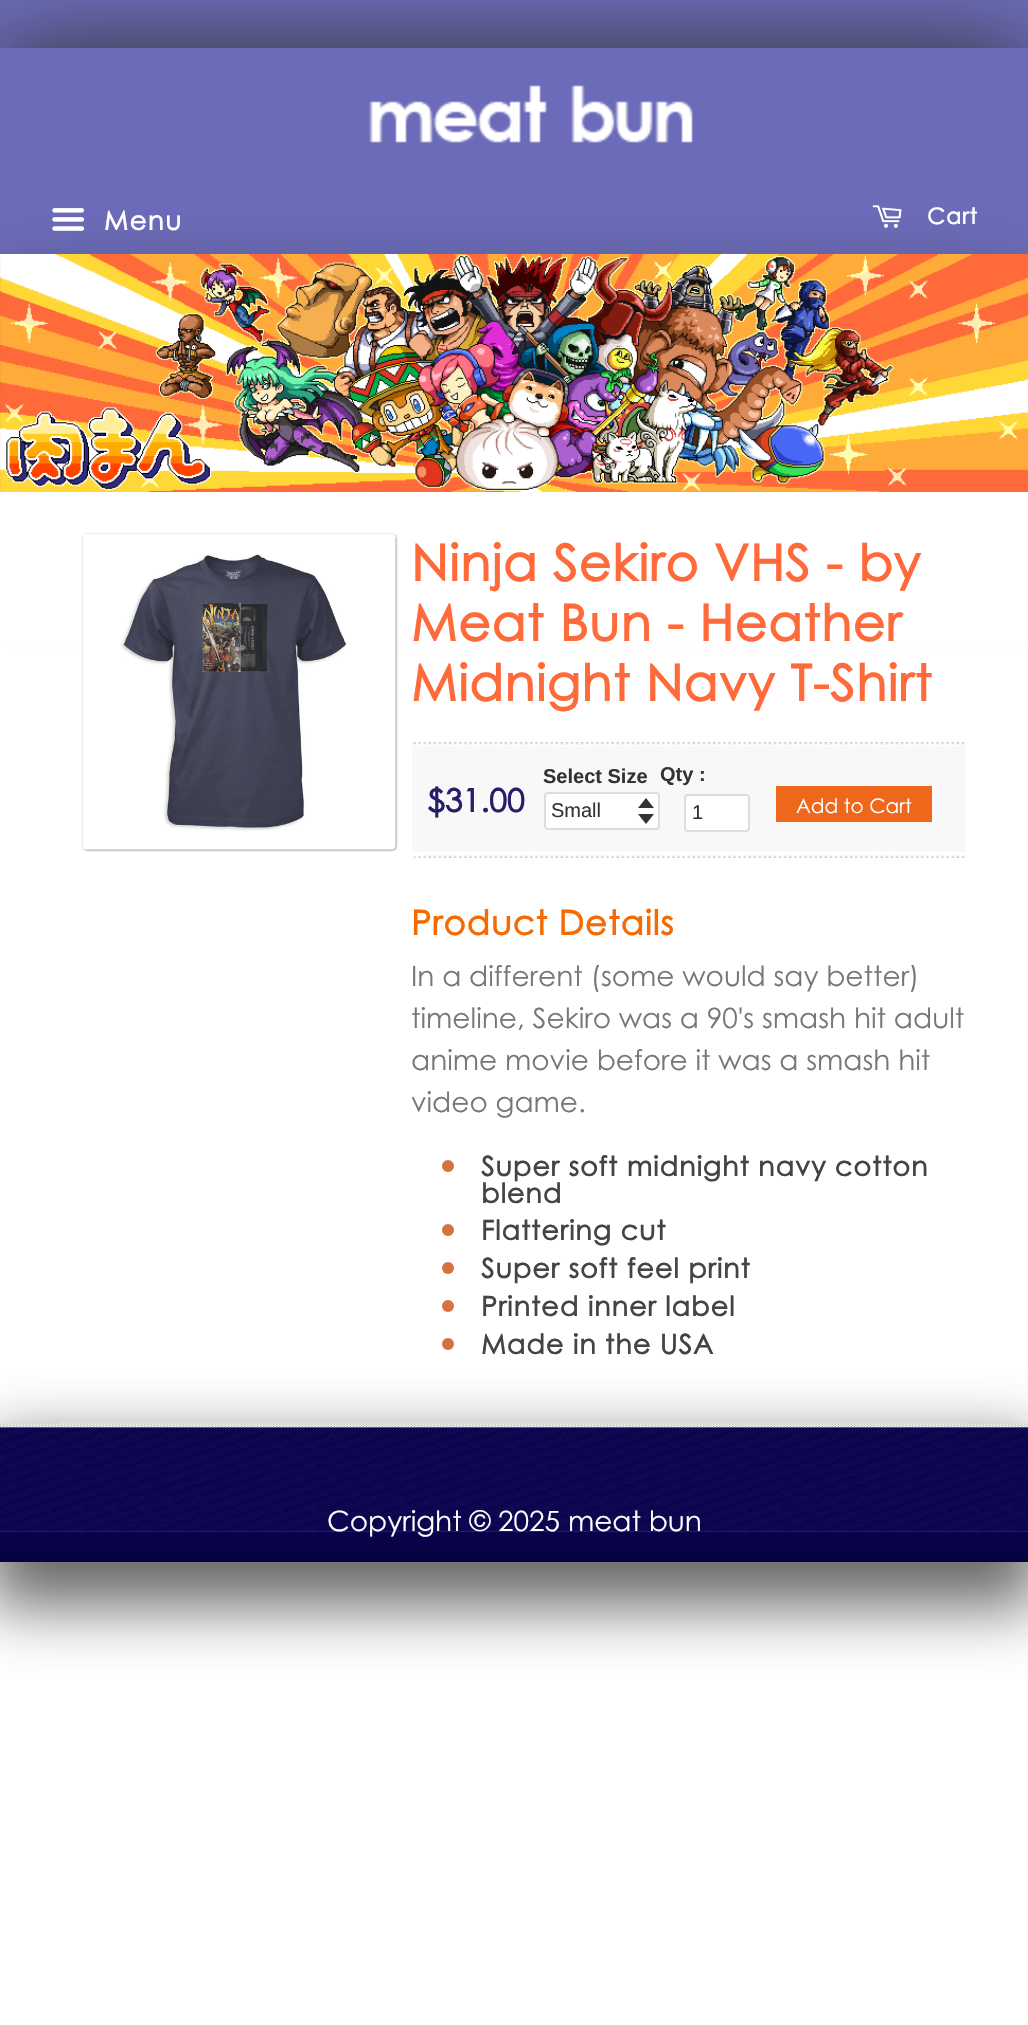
#include "include/core/SkBlurTypes.h"
#include "include/core/SkCanvas.h"
#include "include/core/SkData.h"
#include "include/core/SkFont.h"
#include "include/core/SkFontMgr.h"
#include "include/core/SkImage.h"
#include "include/core/SkMaskFilter.h"
#include "include/core/SkPaint.h"
#include "include/core/SkPathBuilder.h"
#include "include/core/SkTextBlob.h"
#include "include/effects/SkDashPathEffect.h"
#include "include/effects/SkGradientShader.h"
#include "include/utils/SkParsePath.h"

extern sk_sp<SkFontMgr> fontMgr;

static SkFont font(const char* family, int weight, float size, bool italic = false) {
    SkFontStyle style(weight, SkFontStyle::kNormal_Width,
        italic ? SkFontStyle::kItalic_Slant : SkFontStyle::kUpright_Slant);
    SkFont result(fontMgr->matchFamilyStyle(family, style), size);
    result.setSubpixel(true);
    return result;
}

static void drawLabel(SkCanvas* canvas, const char* s, float x, float y, const SkFont& font, SkColor color) {
    SkPaint ink(SkColor4f::FromColor(color));
    ink.setAntiAlias(true);
    canvas->drawString(s, x, y, font, ink);
}

static void drawTracked(SkCanvas* canvas, const char* s, float x, float y, const SkFont& font, const SkPaint& ink, float letter, float word) {
    std::vector<SkGlyphID> glyphs(font.countText(s, strlen(s), SkTextEncoding::kUTF8));
    std::vector<float> xs(glyphs.size());
    font.textToGlyphs(s, strlen(s), SkTextEncoding::kUTF8, glyphs);
    font.getXPos(glyphs, xs, x);
    float extra = 0;
    for (size_t i = 0; i < glyphs.size(); i++) {
        xs[i] += extra;
        extra += letter + word * (glyphs[i] == font.unicharToGlyph(' '));
    }
    canvas->drawTextBlob(SkTextBlob::MakeFromPosHGlyphs(glyphs, xs, y, font), 0, 0, ink);
}

static void fillRect(SkCanvas* canvas, float x, float y, float w, float h, SkColor color) {
    SkPaint ink(SkColor4f::FromColor(color));
    ink.setAntiAlias(true);
    canvas->drawRect(SkRect::MakeXYWH(x, y, w, h), ink);
}

static void fillRRect(SkCanvas* canvas, float x, float y, float w, float h, float radius, SkColor color) {
    SkPaint ink(SkColor4f::FromColor(color));
    ink.setAntiAlias(true);
    canvas->drawRoundRect(SkRect::MakeXYWH(x, y, w, h), radius, radius, ink);
}

static void drawPhoto(SkCanvas* canvas, const char* path, float x, float y, float w, float h) {
    auto image = SkImages::DeferredFromEncodedData(SkData::MakeFromFileName(path));
    canvas->drawImageRect(image, SkRect::MakeXYWH(x, y, w, h), SkSamplingOptions());
}

static SkPath parsePath(const char* data, bool evenOdd = false) {
    SkPath result = *SkParsePath::FromSVGString(data);
    if (evenOdd) result.setFillType(SkPathFillType::kEvenOdd);
    return result;
}

void draw(SkCanvas* canvas) {
    SkPaint paint;
    paint.setAntiAlias(true);
    canvas->clear(0xFFFFFFFF);
    fillRect(canvas, 0, 0, 1028, 254, 0xFF6B6BBA);
    paint.setColor(0xFF333333);
    paint.setMaskFilter(SkMaskFilter::MakeBlur(kNormal_SkBlurStyle, 45));
    canvas->drawRect(SkRect::MakeXYWH(0, 306, 1028, 238), paint);
    paint.setMaskFilter(nullptr);
    canvas->save();
    canvas->clipRect(SkRect::MakeXYWH(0, 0, 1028, 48));
    paint.setMaskFilter(SkMaskFilter::MakeBlur(kNormal_SkBlurStyle, 45));
    canvas->drawRect(SkRect::MakeXYWH(0, 48, 1028, 206), paint);
    paint.setMaskFilter(nullptr);
    canvas->restore();
    drawPhoto(canvas, "assets/img1.png", 0, 254, 1028, 238);
    drawPhoto(canvas, "assets/img2.png", 369, 85, 324, 58);
    drawPhoto(canvas, "assets/img3.png", 52, 208, 33, 23);
    SkFont font1 = font("Century Gothic", 700, 26);
    paint.setColor(0xFFFFFFFF);
    drawTracked(canvas, "Menu", 104, 230, font1, paint, 1.5f, 0);
    drawPhoto(canvas, "assets/img4.png", 872, 205, 30, 23);
    SkFont font2 = font("Century Gothic", 700, 22);
    drawTracked(canvas, "Cart", 927, 224, font2, paint, 1, 0);
    fillRect(canvas, 0, 492, 1028, 153, 0xFFFFFFFF);
    paint.setColor(0xBF333333);
    paint.setMaskFilter(SkMaskFilter::MakeBlur(kNormal_SkBlurStyle, 32));
    canvas->drawRect(SkRect::MakeXYWH(-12, 1442, 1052, 164), paint);
    paint.setMaskFilter(nullptr);
    fillRect(canvas, 60, 1422, 908, 2, 0xFFDDDDDD);
    drawPhoto(canvas, "assets/img5.png", 81, 533, 317, 319);
    drawPhoto(canvas, "assets/img6.png", 120, 554, 228, 277);
    SkFont font3 = font("Century Gothic", 700, 50);
    paint.setColor(0xFFFF6A3A);
    drawTracked(canvas, "Ninja Sekiro VHS - by", 411, 581, font3, paint, 1, 0);
    drawTracked(canvas, "Meat Bun - Heather", 411, 641, font3, paint, 1, 0);
    drawTracked(canvas, "Midnight Navy T-Shirt", 411, 701, font3, paint, 1, 0);
    drawPhoto(canvas, "assets/img7.png", 412, 742, 556, 116);
    SkFont font4 = font("Century Gothic", 700, 32);
    drawLabel(canvas, "$31.00", 427, 812, font4, 0xFF251F69);
    SkFont font5 = font("Liberation Sans", 700, 20);
    drawLabel(canvas, "Select Size", 543, 783, font5, 0xFF333333);
    fillRRect(canvas, 544, 792, 116, 38, 4, 0xFFFFFFFF);
    paint.setColor(0xFF333333);
    canvas->drawPath(parsePath("M638 814L646 824L654 814ZM646 798L638 808H654Z"), paint);
    paint.setStroke(true);
    paint.setStrokeWidth(2);
    paint.setColor(0xFFDDDDDD);
    canvas->drawRoundRect(SkRect::MakeXYWH(545, 793, 114, 36), 3, 3, paint);
    SkFont font6 = font("Liberation Sans", 400, 20);
    drawLabel(canvas, "Small", 551, 817, font6, 0xFF333333);
    drawLabel(canvas, "Qty :", 660, 781, font5, 0xFF333333);
    paint.setStroke(false);
    paint.setColor(0xFFFFFFFF);
    canvas->drawRoundRect(SkRect::MakeXYWH(685, 795, 64, 36), 3, 3, paint);
    paint.setStroke(true);
    paint.setColor(0xFFDDDDDD);
    canvas->drawRoundRect(SkRect::MakeXYWH(685, 795, 64, 36), 3, 3, paint);
    drawLabel(canvas, "1", 692, 819, font6, 0xFF333333);
    fillRect(canvas, 776, 786, 156, 36, 0xFFEE671B);
    SkFont font7 = font("Century Gothic", 400, 20);
    drawLabel(canvas, "Add to Cart", 796, 813, font7, 0xFFFFFFFF);
    SkFont font8 = font("Century Gothic", 700, 34);
    paint.setStroke(false);
    paint.setColor(0xFFF76A01);
    drawTracked(canvas, "Product Details", 411, 935, font8, paint, 1, 0);
    SkFont font9 = font("Century Gothic", 400, 28);
    drawLabel(canvas, "In a different (some would say better)", 411, 986, font9, 0xFF777777);
    drawLabel(canvas, "timeline, Sekiro was a 90's smash hit adult", 411, 1028, font9, 0xFF777777);
    drawLabel(canvas, "anime movie before it was a smash hit", 411, 1070, font9, 0xFF777777);
    drawLabel(canvas, "video game.", 411, 1112, font9, 0xFF777777);
    paint.setColor(0xFFD67142);
    canvas->drawCircle(448, 1166, 6, paint);
    SkFont font10 = font("Century Gothic", 700, 27);
    paint.setColor(0xFF444444);
    drawTracked(canvas, "Super soft midnight navy cotton", 481, 1176, font10, paint, 1, 0);
    drawTracked(canvas, "blend", 481, 1203, font10, paint, 1, 0);
    paint.setColor(0xFFD67142);
    canvas->drawCircle(448, 1230, 6, paint);
    paint.setColor(0xFF444444);
    drawTracked(canvas, "Flattering cut", 481, 1240, font10, paint, 1, 0);
    paint.setColor(0xFFD67142);
    canvas->drawCircle(448, 1268, 6, paint);
    paint.setColor(0xFF444444);
    drawTracked(canvas, "Super soft feel print", 481, 1278, font10, paint, 1, 0);
    paint.setColor(0xFFD67142);
    canvas->drawCircle(448, 1306, 6, paint);
    paint.setColor(0xFF444444);
    drawTracked(canvas, "Printed inner label", 481, 1316, font10, paint, 1, 0);
    paint.setColor(0xFFD67142);
    canvas->drawCircle(448, 1344, 6, paint);
    paint.setColor(0xFF444444);
    drawTracked(canvas, "Made in the USA", 481, 1354, font10, paint, 1, 0);
    drawPhoto(canvas, "assets/img8.png", 0, 1424, 1028, 138);
    drawLabel(canvas, "Copyright © 2025 meat bun", 327, 1531, font9, 0xFFFFFFFF);
}
